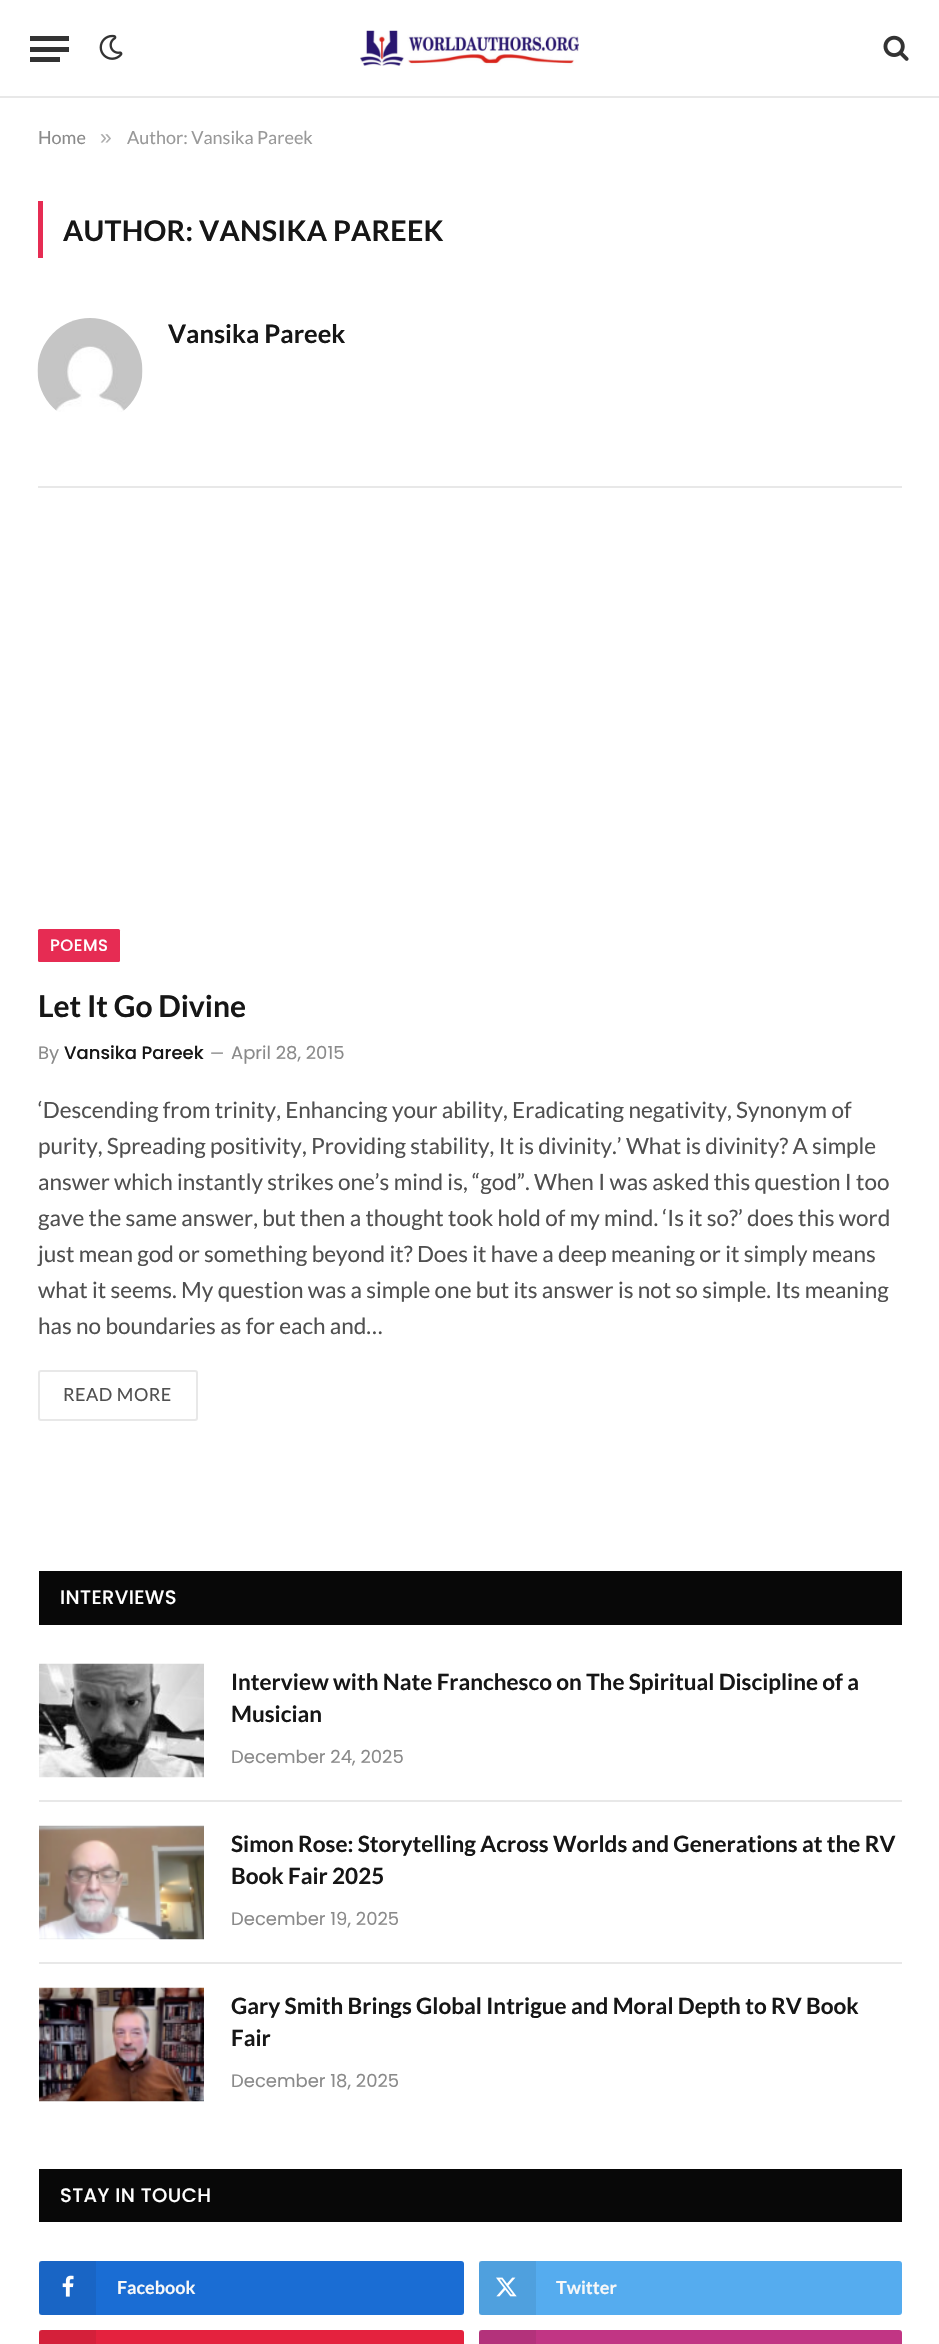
#include "include/core/SkBlurTypes.h"
#include "include/core/SkCanvas.h"
#include "include/core/SkData.h"
#include "include/core/SkFont.h"
#include "include/core/SkFontMgr.h"
#include "include/core/SkImage.h"
#include "include/core/SkMaskFilter.h"
#include "include/core/SkPaint.h"
#include "include/core/SkPathBuilder.h"
#include "include/core/SkTextBlob.h"
#include "include/effects/SkDashPathEffect.h"
#include "include/effects/SkGradientShader.h"
#include "include/utils/SkParsePath.h"

extern sk_sp<SkFontMgr> fontMgr;

static SkFont font(const char* family, int weight, float size, bool italic = false) {
    SkFontStyle style(weight, SkFontStyle::kNormal_Width,
        italic ? SkFontStyle::kItalic_Slant : SkFontStyle::kUpright_Slant);
    SkFont result(fontMgr->matchFamilyStyle(family, style), size);
    result.setSubpixel(true);
    return result;
}

static void drawLabel(SkCanvas* canvas, const char* s, float x, float y, const SkFont& font, SkColor color) {
    SkPaint ink(SkColor4f::FromColor(color));
    ink.setAntiAlias(true);
    canvas->drawString(s, x, y, font, ink);
}

static void drawTracked(SkCanvas* canvas, const char* s, float x, float y, const SkFont& font, const SkPaint& ink, float letter, float word) {
    std::vector<SkGlyphID> glyphs(font.countText(s, strlen(s), SkTextEncoding::kUTF8));
    std::vector<float> xs(glyphs.size());
    font.textToGlyphs(s, strlen(s), SkTextEncoding::kUTF8, glyphs);
    font.getXPos(glyphs, xs, x);
    float extra = 0;
    for (size_t i = 0; i < glyphs.size(); i++) {
        xs[i] += extra;
        extra += letter + word * (glyphs[i] == font.unicharToGlyph(' '));
    }
    canvas->drawTextBlob(SkTextBlob::MakeFromPosHGlyphs(glyphs, xs, y, font), 0, 0, ink);
}

static void fillRect(SkCanvas* canvas, float x, float y, float w, float h, SkColor color) {
    SkPaint ink(SkColor4f::FromColor(color));
    ink.setAntiAlias(true);
    canvas->drawRect(SkRect::MakeXYWH(x, y, w, h), ink);
}

static void fillRRect(SkCanvas* canvas, float x, float y, float w, float h, float radius, SkColor color) {
    SkPaint ink(SkColor4f::FromColor(color));
    ink.setAntiAlias(true);
    canvas->drawRoundRect(SkRect::MakeXYWH(x, y, w, h), radius, radius, ink);
}

static void drawPhoto(SkCanvas* canvas, const char* path, float x, float y, float w, float h) {
    auto image = SkImages::DeferredFromEncodedData(SkData::MakeFromFileName(path));
    canvas->drawImageRect(image, SkRect::MakeXYWH(x, y, w, h), SkSamplingOptions());
}

void draw(SkCanvas* canvas) {
    SkPaint paint;
    paint.setAntiAlias(true);
    canvas->clear(0xFFFFFFFF);
    fillRect(canvas, 0, 96, 939, 2, 0xFFE8E8E8);
    fillRect(canvas, 30, 57, 30, 5, 0xFF333333);
    fillRect(canvas, 30, 36, 39, 5, 0xFF333333);
    fillRect(canvas, 30, 47, 39, 5, 0xFF333333);
    drawPhoto(canvas, "assets/img1.png", 99, 34, 24, 26);
    drawPhoto(canvas, "assets/img2.png", 360, 30, 219, 36);
    drawPhoto(canvas, "assets/img3.png", 883, 35, 26, 26);
    SkFont font1 = font("Lato", 400, 18);
    drawLabel(canvas, "Home", 38, 144, font1, 0xFF8A8A8A);
    SkFont font2 = font("Liberation Sans", 400, 21);
    drawLabel(canvas, "»", 100, 144, font2, 0xFFADADAD);
    drawLabel(canvas, "Author: Vansika Pareek", 127, 144, font1, 0xFF999999);
    fillRect(canvas, 38, 201, 5, 57, 0xFFE62C53);
    SkFont font3 = font("Lato", 700, 28.5f);
    paint.setColor(0xFF161616);
    drawTracked(canvas, "AUTHOR: VANSIKA PAREEK", 63, 241, font3, paint, 0.25f, 0);
    fillRect(canvas, 38, 486, 864, 2, 0xFFE8E8E8);
    drawPhoto(canvas, "assets/img4.png", 37, 318, 106, 94);
    SkFont font4 = font("Lato", 700, 25.5f);
    drawLabel(canvas, "Vansika Pareek", 168, 343, font4, 0xFF161616);
    fillRRect(canvas, 38, 929, 82, 33, 1.5f, 0xFFE62C53);
    SkFont font5 = font("Poppins", 500, 16.5f);
    paint.setColor(0xFFFFFFFF);
    drawTracked(canvas, "POEMS", 50, 951, font5, paint, 0.5f, 0);
    SkFont font6 = font("Lato", 700, 30);
    drawLabel(canvas, "Let It Go Divine", 38, 1017, font6, 0xFF161616);
    SkFont font7 = font("Poppins", 400, 18);
    drawLabel(canvas, "By", 38, 1059, font7, 0xFF8A8A8A);
    SkFont font8 = font("Poppins", 500, 18);
    drawLabel(canvas, "Vansika Pareek", 64, 1059, font8, 0xFF161616);
    SkFont font9 = font("Poppins", 400, 16);
    drawLabel(canvas, "—", 210, 1059, font9, 0xFF8A8A8A);
    drawLabel(canvas, "April 28, 2015", 231, 1059, font7, 0xFF8A8A8A);
    SkFont font10 = font("Lato", 400, 22.5f);
    drawLabel(canvas, "‘Descending from trinity, Enhancing your ability, Eradicating negativity, Synonym of", 38, 1118, font10, 0xFF505050);
    drawLabel(canvas, "purity, Spreading positivity, Providing stability, It is divinity.’ What is divinity? A simple", 38, 1154, font10, 0xFF505050);
    drawLabel(canvas, "answer which instantly strikes one’s mind is, “god”. When I was asked this question I too", 38, 1190, font10, 0xFF505050);
    drawLabel(canvas, "gave the same answer, but then a thought took hold of my mind. ‘Is it so?’ does this word", 38, 1226, font10, 0xFF505050);
    drawLabel(canvas, "just mean god or something beyond it? Does it have a deep meaning or it simply means", 38, 1262, font10, 0xFF505050);
    drawLabel(canvas, "what it seems. My question was a simple one but its answer is not so simple. Its meaning", 38, 1298, font10, 0xFF505050);
    drawLabel(canvas, "has no boundaries as for each and…", 38, 1334, font10, 0xFF505050);
    paint.setStroke(true);
    paint.setStrokeWidth(2);
    paint.setColor(0xFFE8E8E8);
    canvas->drawRoundRect(SkRect::MakeXYWH(39, 1371, 158, 49), 2, 2, paint);
    paint.setStroke(false);
    paint.setColor(0xFF505050);
    drawTracked(canvas, "READ MORE", 63, 1401, font1, paint, 0.5f, 0);
    fillRect(canvas, 39, 1571, 863, 54, 0xFF080808);
    SkFont font11 = font("Poppins", 500, 19.5f);
    paint.setColor(0xFFFFFFFF);
    drawTracked(canvas, "INTERVIEWS", 60, 1604, font11, paint, 0.4f, 0);
    drawPhoto(canvas, "assets/img5.png", 39, 1663, 165, 115);
    SkFont font12 = font("Lato", 700, 22.5f);
    drawLabel(canvas, "Interview with Nate Franchesco on The Spiritual Discipline of a", 231, 1690, font12, 0xFF161616);
    drawLabel(canvas, "Musician", 231, 1722, font12, 0xFF161616);
    drawLabel(canvas, "December 24, 2025", 231, 1763, font7, 0xFF8A8A8A);
    fillRect(canvas, 39, 1800, 863, 2, 0xFFE8E8E8);
    drawPhoto(canvas, "assets/img6.png", 39, 1825, 165, 115);
    drawLabel(canvas, "Simon Rose: Storytelling Across Worlds and Generations at the RV", 231, 1852, font12, 0xFF161616);
    drawLabel(canvas, "Book Fair 2025", 231, 1884, font12, 0xFF161616);
    drawLabel(canvas, "December 19, 2025", 231, 1925, font7, 0xFF8A8A8A);
    fillRect(canvas, 39, 1962, 863, 2, 0xFFE8E8E8);
    drawPhoto(canvas, "assets/img7.png", 39, 1987, 165, 115);
    drawLabel(canvas, "Gary Smith Brings Global Intrigue and Moral Depth to RV Book", 231, 2014, font12, 0xFF161616);
    drawLabel(canvas, "Fair", 231, 2046, font12, 0xFF161616);
    drawLabel(canvas, "December 18, 2025", 231, 2087, font7, 0xFF8A8A8A);
    fillRect(canvas, 39, 2169, 863, 53, 0xFF080808);
    drawTracked(canvas, "STAY IN TOUCH", 60, 2202, font11, paint, 0.4f, 0);
    fillRRect(canvas, 39, 2261, 425, 54, 3, 0xFF1A6DD4);
    fillRect(canvas, 39, 2261, 57, 54, 0x12000000);
    drawPhoto(canvas, "assets/img8.png", 62, 2275, 12, 22);
    SkFont font13 = font("Lato", 700, 18);
    drawLabel(canvas, "Facebook", 117, 2294, font13, 0xFFF8F8F8);
    fillRRect(canvas, 479, 2261, 423, 54, 3, 0xFF55ACEF);
    fillRect(canvas, 479, 2261, 57, 54, 0x12000000);
    drawPhoto(canvas, "assets/img9.png", 496, 2277, 21, 20);
    drawLabel(canvas, "Twitter", 556, 2294, font13, 0xFFF8F8F8);
    fillRRect(canvas, 39, 2330, 425, 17, 3, 0xFFE4223E);
    fillRect(canvas, 39, 2330, 57, 14, 0x12000000);
    fillRRect(canvas, 479, 2330, 423, 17, 3, 0xFFC13584);
    fillRect(canvas, 479, 2330, 57, 14, 0x12000000);
}
